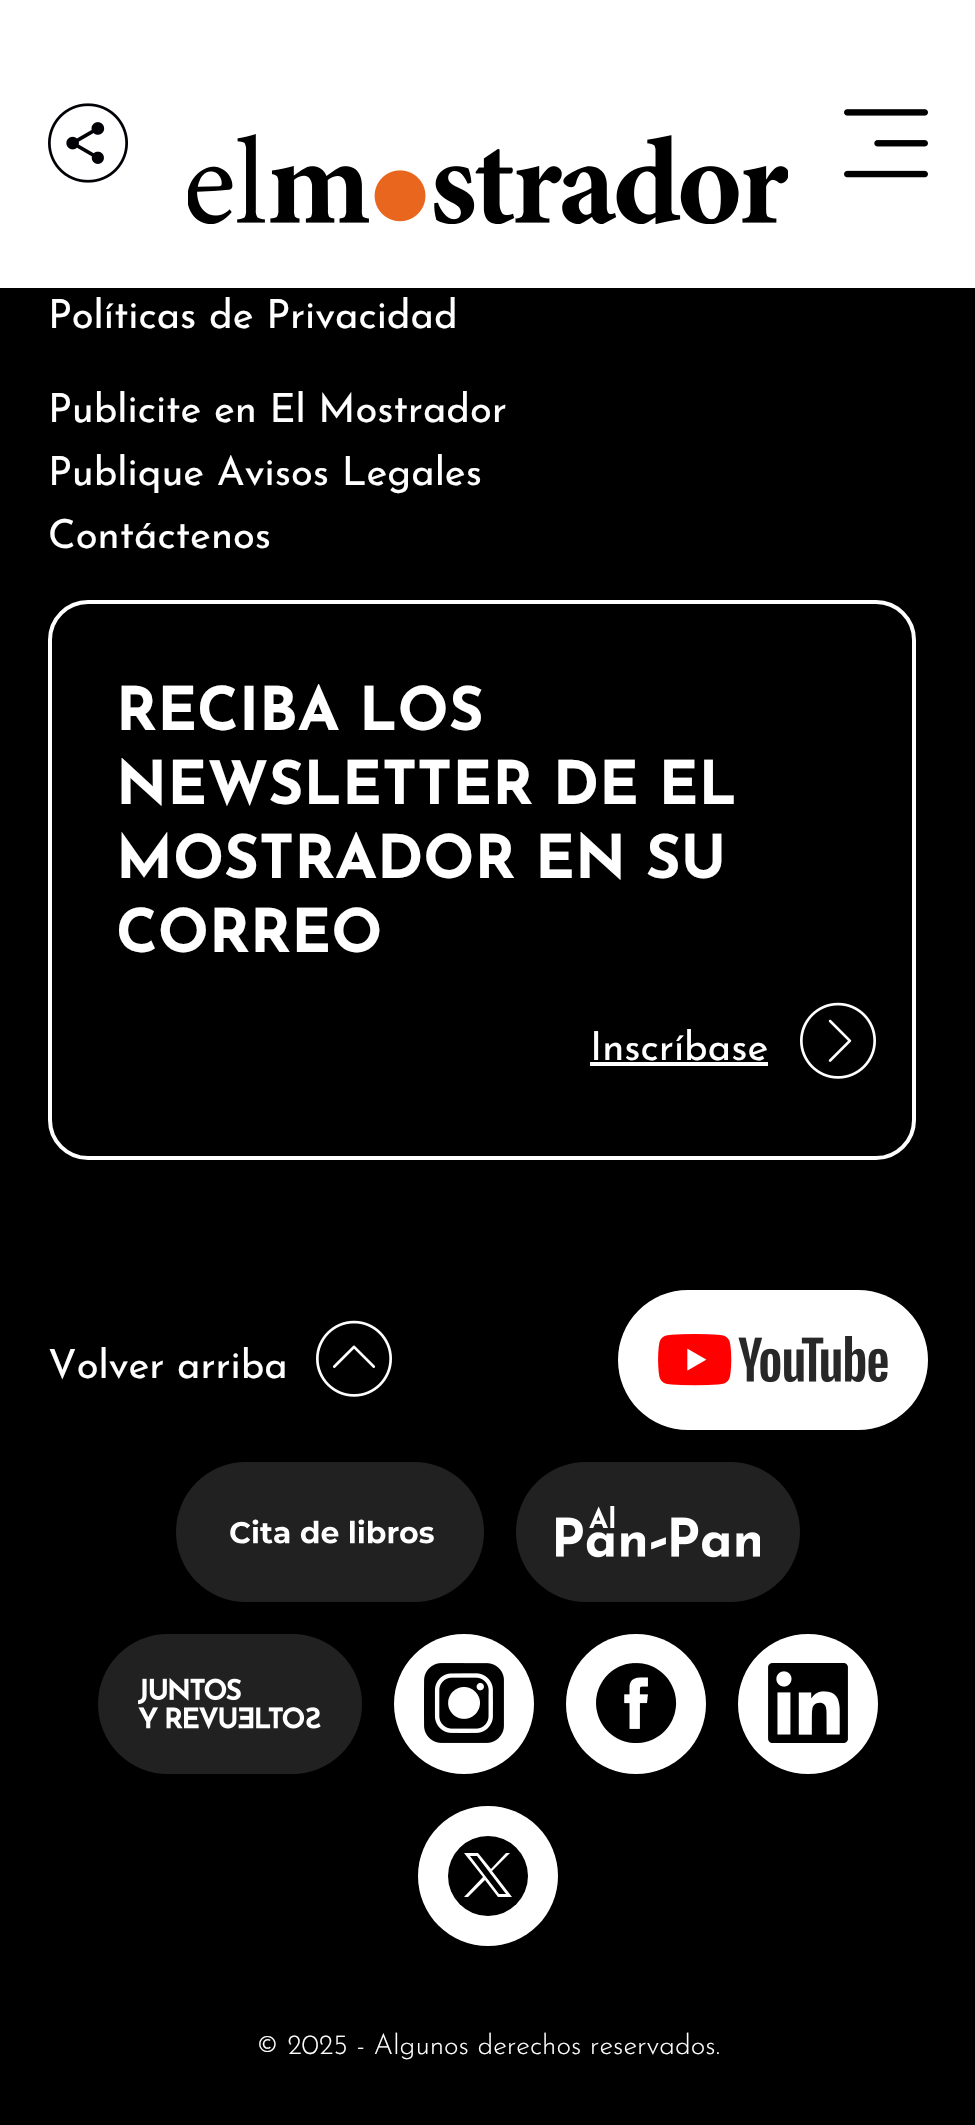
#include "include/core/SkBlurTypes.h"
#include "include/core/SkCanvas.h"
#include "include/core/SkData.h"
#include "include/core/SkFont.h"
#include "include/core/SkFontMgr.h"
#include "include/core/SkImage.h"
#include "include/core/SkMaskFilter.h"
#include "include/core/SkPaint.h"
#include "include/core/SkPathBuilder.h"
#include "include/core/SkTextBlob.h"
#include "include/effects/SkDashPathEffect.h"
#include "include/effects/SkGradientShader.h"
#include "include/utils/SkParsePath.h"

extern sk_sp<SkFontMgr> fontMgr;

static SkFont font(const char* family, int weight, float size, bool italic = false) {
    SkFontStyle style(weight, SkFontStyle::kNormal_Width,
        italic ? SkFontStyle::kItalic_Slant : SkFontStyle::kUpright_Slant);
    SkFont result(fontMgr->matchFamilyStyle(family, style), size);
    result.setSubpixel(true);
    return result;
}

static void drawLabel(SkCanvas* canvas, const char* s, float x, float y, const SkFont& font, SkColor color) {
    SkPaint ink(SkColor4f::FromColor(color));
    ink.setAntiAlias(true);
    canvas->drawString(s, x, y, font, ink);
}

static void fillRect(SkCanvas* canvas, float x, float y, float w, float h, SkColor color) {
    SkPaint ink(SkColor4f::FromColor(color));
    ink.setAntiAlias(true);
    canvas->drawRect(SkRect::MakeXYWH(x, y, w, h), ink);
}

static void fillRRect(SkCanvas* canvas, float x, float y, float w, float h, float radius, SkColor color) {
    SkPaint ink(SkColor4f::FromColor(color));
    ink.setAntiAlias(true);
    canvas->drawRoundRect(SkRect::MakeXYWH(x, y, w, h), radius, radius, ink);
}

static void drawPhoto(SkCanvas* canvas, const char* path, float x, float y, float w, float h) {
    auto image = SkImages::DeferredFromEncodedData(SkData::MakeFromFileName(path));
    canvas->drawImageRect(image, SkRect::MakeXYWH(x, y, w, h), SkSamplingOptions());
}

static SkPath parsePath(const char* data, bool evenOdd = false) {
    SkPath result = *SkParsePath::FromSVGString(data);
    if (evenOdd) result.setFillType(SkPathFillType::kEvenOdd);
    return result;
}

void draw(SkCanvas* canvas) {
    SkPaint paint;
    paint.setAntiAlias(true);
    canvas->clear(0xFF000000);
    paint.setColor(0x29000000);
    paint.setMaskFilter(SkMaskFilter::MakeBlur(kNormal_SkBlurStyle, 6));
    canvas->drawRect(SkRect::MakeXYWH(0, 6, 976, 288), paint);
    paint.setMaskFilter(nullptr);
    fillRect(canvas, 0, 0, 975, 288, 0xFFFFFFFF);
    drawPhoto(canvas, "assets/img1.png", 48, 103, 80, 80);
    drawPhoto(canvas, "assets/img2.png", 188, 134, 600, 90);
    drawPhoto(canvas, "assets/img3.png", 844, 109, 84, 69);
    SkFont font1 = font("Josefin Sans", 400, 40);
    drawLabel(canvas, "Políticas de Privacidad", 48, 328, font1, 0xFFFFFFFF);
    drawLabel(canvas, "Publicite en El Mostrador", 48, 422, font1, 0xFFFFFFFF);
    drawLabel(canvas, "Publique Avisos Legales", 48, 485, font1, 0xFFFFFFFF);
    drawLabel(canvas, "Contáctenos", 48, 548, font1, 0xFFFFFFFF);
    paint.setStroke(true);
    paint.setStrokeWidth(4);
    paint.setColor(0xFFFFFFFF);
    canvas->drawRoundRect(SkRect::MakeXYWH(50, 602, 864, 556), 38, 38, paint);
    SkFont font2 = font("Josefin Sans", 700, 60);
    drawLabel(canvas, "RECIBA LOS", 116, 730, font2, 0xFFFFFFFF);
    drawLabel(canvas, "NEWSLETTER DE EL", 116, 804, font2, 0xFFFFFFFF);
    drawLabel(canvas, "MOSTRADOR EN SU", 116, 878, font2, 0xFFFFFFFF);
    drawLabel(canvas, "CORREO", 116, 952, font2, 0xFFFFFFFF);
    drawLabel(canvas, "Inscríbase", 590, 1060, font1, 0xFFFFFFFF);
    fillRect(canvas, 590, 1062, 178, 4, 0xFFFFFFFF);
    drawPhoto(canvas, "assets/img4.png", 800, 1002, 76, 77);
    drawLabel(canvas, "Volver arriba", 48, 1378, font1, 0xFFFFFFFF);
    drawPhoto(canvas, "assets/img5.png", 316, 1320, 76, 77);
    fillRRect(canvas, 618, 1290, 310, 140, 70, 0xFFFFFFFF);
    drawPhoto(canvas, "assets/img6.png", 658, 1334, 230, 52);
    fillRRect(canvas, 176, 1462, 308, 140, 70, 0xFF222121);
    drawPhoto(canvas, "assets/img7.png", 230, 1519, 204, 25);
    fillRRect(canvas, 516, 1462, 284, 140, 70, 0xFF222121);
    drawPhoto(canvas, "assets/img8.png", 556, 1506, 204, 52);
    fillRRect(canvas, 98, 1634, 264, 140, 70, 0xFF222121);
    drawPhoto(canvas, "assets/img9.png", 138, 1678, 183, 52);
    paint.setStroke(false);
    canvas->drawCircle(464, 1704, 70, paint);
    drawPhoto(canvas, "assets/img10.png", 424, 1663, 80, 80);
    canvas->drawCircle(636, 1704, 70, paint);
    drawPhoto(canvas, "assets/img11.png", 596, 1663, 81, 80);
    canvas->drawCircle(808, 1704, 70, paint);
    drawPhoto(canvas, "assets/img12.png", 768, 1663, 80, 80);
    canvas->drawCircle(488, 1876, 70, paint);
    paint.setColor(0xFF000000);
    canvas->drawCircle(488, 1876, 40, paint);
    paint.setColor(0xFFFFFFFF);
    canvas->drawPath(parsePath("M464 1853L483 1877L464 1897H468L485 1880L498 1897H512L492 1871L510 1853H506L491 1869L478 1853ZM470 1856H477L506 1894H499Z"), paint);
    SkFont font3 = font("Josefin Sans", 300, 28);
    drawLabel(canvas, "© 2025 - Algunos derechos reservados.", 256, 2054, font3, 0xFFFFFFFF);
}
